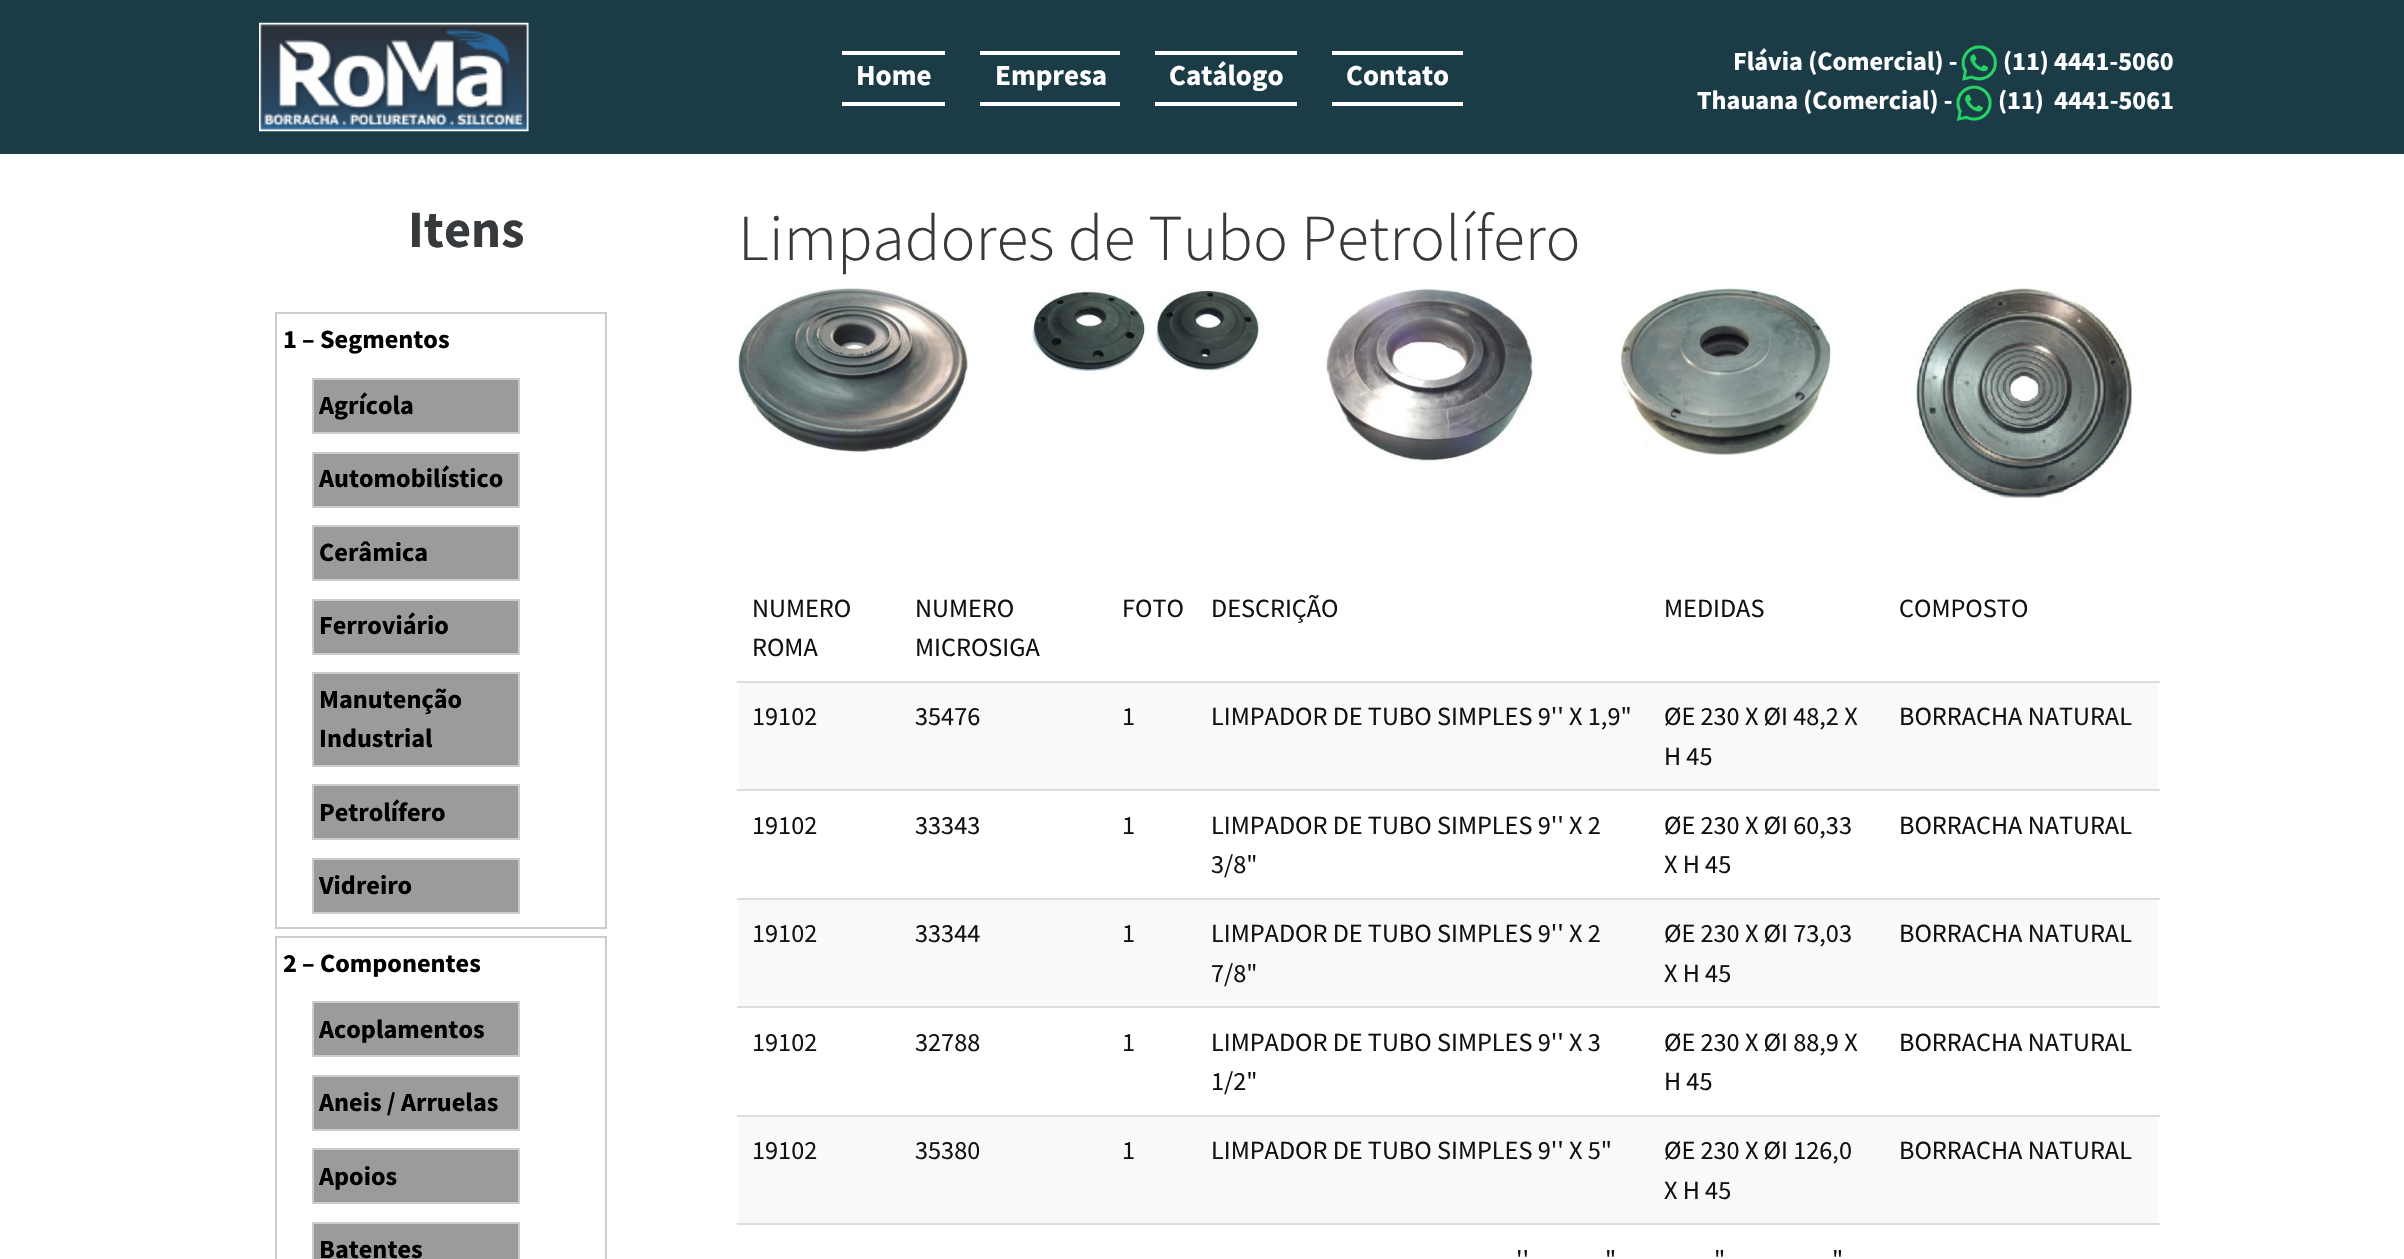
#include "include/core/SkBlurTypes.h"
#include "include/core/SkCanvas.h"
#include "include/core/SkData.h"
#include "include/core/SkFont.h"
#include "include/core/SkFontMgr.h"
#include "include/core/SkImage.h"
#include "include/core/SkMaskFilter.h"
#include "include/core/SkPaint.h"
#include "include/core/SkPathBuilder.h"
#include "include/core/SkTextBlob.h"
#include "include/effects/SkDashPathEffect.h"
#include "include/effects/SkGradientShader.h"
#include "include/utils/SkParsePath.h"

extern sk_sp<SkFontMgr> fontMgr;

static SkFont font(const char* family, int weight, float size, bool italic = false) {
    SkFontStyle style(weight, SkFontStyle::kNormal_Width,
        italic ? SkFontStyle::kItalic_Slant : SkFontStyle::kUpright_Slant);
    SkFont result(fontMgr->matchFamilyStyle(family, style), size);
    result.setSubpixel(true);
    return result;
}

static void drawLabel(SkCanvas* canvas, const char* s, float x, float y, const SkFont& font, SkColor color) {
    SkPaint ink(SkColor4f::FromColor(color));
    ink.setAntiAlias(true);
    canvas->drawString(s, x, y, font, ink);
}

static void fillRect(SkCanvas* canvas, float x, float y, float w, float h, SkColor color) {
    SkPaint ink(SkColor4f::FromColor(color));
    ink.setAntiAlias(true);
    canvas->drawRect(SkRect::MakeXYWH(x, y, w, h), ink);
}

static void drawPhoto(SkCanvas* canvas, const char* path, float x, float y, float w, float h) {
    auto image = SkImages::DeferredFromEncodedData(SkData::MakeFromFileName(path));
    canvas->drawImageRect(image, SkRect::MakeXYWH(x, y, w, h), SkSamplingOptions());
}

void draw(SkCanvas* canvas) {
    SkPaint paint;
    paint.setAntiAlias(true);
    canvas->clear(0xFFFFFFFF);
    fillRect(canvas, 0, 0, 2404, 154, 0xFF1B3C47);
    drawPhoto(canvas, "assets/img1.png", 259, 22, 270, 110);
    fillRect(canvas, 842, 51, 103, 4, 0xFFFFFFFF);
    fillRect(canvas, 842, 102, 103, 4, 0xFFFFFFFF);
    SkFont font1 = font("Source Sans Pro", 700, 29);
    drawLabel(canvas, "Home", 856, 85, font1, 0xFFFFFFFF);
    fillRect(canvas, 980, 51, 140, 4, 0xFFFFFFFF);
    fillRect(canvas, 980, 102, 140, 4, 0xFFFFFFFF);
    drawLabel(canvas, "Empresa", 995, 85, font1, 0xFFFFFFFF);
    fillRect(canvas, 1155, 51, 142, 4, 0xFFFFFFFF);
    fillRect(canvas, 1155, 102, 142, 4, 0xFFFFFFFF);
    drawLabel(canvas, "Catálogo", 1169, 85, font1, 0xFFFFFFFF);
    fillRect(canvas, 1332, 51, 131, 4, 0xFFFFFFFF);
    fillRect(canvas, 1332, 102, 131, 4, 0xFFFFFFFF);
    drawLabel(canvas, "Contato", 1346, 85, font1, 0xFFFFFFFF);
    SkFont font2 = font("Source Sans Pro", 700, 26.25f);
    drawLabel(canvas, "Flávia (Comercial) -", 1733, 70, font2, 0xFFFFFFFF);
    drawPhoto(canvas, "assets/img2.png", 1961, 45, 36, 36);
    drawLabel(canvas, "(11) 4441-5060", 2003, 70, font2, 0xFFFFFFFF);
    drawLabel(canvas, "Thauana (Comercial) -", 1697, 109, font2, 0xFFFFFFFF);
    drawPhoto(canvas, "assets/img3.png", 1956, 85, 36, 36);
    drawLabel(canvas, "(11)  4441-5061", 1998, 109, font2, 0xFFFFFFFF);
    SkFont font3 = font("Source Sans Pro", 700, 52.5f);
    drawLabel(canvas, "Itens", 408, 247, font3, 0xFF373A3C);
    paint.setStroke(true);
    paint.setStrokeWidth(2);
    paint.setColor(0xFFCCCCCC);
    canvas->drawRect(SkRect::MakeXYWH(276, 313, 330, 615), paint);
    drawLabel(canvas, "1 – Segmentos", 283, 348, font2, 0xFF000000);
    paint.setStroke(false);
    paint.setColor(0xFF9B9B9B);
    canvas->drawRect(SkRect::MakeXYWH(313, 379, 206, 54), paint);
    paint.setStroke(true);
    paint.setColor(0xFFCCCCCC);
    canvas->drawRect(SkRect::MakeXYWH(313, 379, 206, 54), paint);
    drawLabel(canvas, "Agrícola", 319, 414, font2, 0xFF000000);
    paint.setStroke(false);
    paint.setColor(0xFF9B9B9B);
    canvas->drawRect(SkRect::MakeXYWH(313, 453, 206, 54), paint);
    paint.setStroke(true);
    paint.setColor(0xFFCCCCCC);
    canvas->drawRect(SkRect::MakeXYWH(313, 453, 206, 54), paint);
    drawLabel(canvas, "Automobilístico", 319, 487, font2, 0xFF000000);
    paint.setStroke(false);
    paint.setColor(0xFF9B9B9B);
    canvas->drawRect(SkRect::MakeXYWH(313, 526, 206, 54), paint);
    paint.setStroke(true);
    paint.setColor(0xFFCCCCCC);
    canvas->drawRect(SkRect::MakeXYWH(313, 526, 206, 54), paint);
    drawLabel(canvas, "Cerâmica", 319, 561, font2, 0xFF000000);
    paint.setStroke(false);
    paint.setColor(0xFF9B9B9B);
    canvas->drawRect(SkRect::MakeXYWH(313, 600, 206, 54), paint);
    paint.setStroke(true);
    paint.setColor(0xFFCCCCCC);
    canvas->drawRect(SkRect::MakeXYWH(313, 600, 206, 54), paint);
    drawLabel(canvas, "Ferroviário", 319, 634, font2, 0xFF000000);
    paint.setStroke(false);
    paint.setColor(0xFF9B9B9B);
    canvas->drawRect(SkRect::MakeXYWH(313, 673, 206, 93), paint);
    paint.setStroke(true);
    paint.setColor(0xFFCCCCCC);
    canvas->drawRect(SkRect::MakeXYWH(313, 673, 206, 93), paint);
    drawLabel(canvas, "Manutenção", 319, 708, font2, 0xFF000000);
    drawLabel(canvas, "Industrial", 319, 747, font2, 0xFF000000);
    paint.setStroke(false);
    paint.setColor(0xFF9B9B9B);
    canvas->drawRect(SkRect::MakeXYWH(313, 785, 206, 54), paint);
    paint.setStroke(true);
    paint.setColor(0xFFCCCCCC);
    canvas->drawRect(SkRect::MakeXYWH(313, 785, 206, 54), paint);
    drawLabel(canvas, "Petrolífero", 319, 821, font2, 0xFF000000);
    paint.setStroke(false);
    paint.setColor(0xFF9B9B9B);
    canvas->drawRect(SkRect::MakeXYWH(313, 859, 206, 54), paint);
    paint.setStroke(true);
    paint.setColor(0xFFCCCCCC);
    canvas->drawRect(SkRect::MakeXYWH(313, 859, 206, 54), paint);
    drawLabel(canvas, "Vidreiro", 319, 894, font2, 0xFF000000);
    canvas->drawRect(SkRect::MakeXYWH(276, 937, 330, 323), paint);
    drawLabel(canvas, "2 – Componentes", 283, 972, font2, 0xFF000000);
    paint.setStroke(false);
    paint.setColor(0xFF9B9B9B);
    canvas->drawRect(SkRect::MakeXYWH(313, 1002, 206, 54), paint);
    paint.setStroke(true);
    paint.setColor(0xFFCCCCCC);
    canvas->drawRect(SkRect::MakeXYWH(313, 1002, 206, 54), paint);
    drawLabel(canvas, "Acoplamentos", 319, 1038, font2, 0xFF000000);
    paint.setStroke(false);
    paint.setColor(0xFF9B9B9B);
    canvas->drawRect(SkRect::MakeXYWH(313, 1076, 206, 54), paint);
    paint.setStroke(true);
    paint.setColor(0xFFCCCCCC);
    canvas->drawRect(SkRect::MakeXYWH(313, 1076, 206, 54), paint);
    drawLabel(canvas, "Aneis / Arruelas", 319, 1111, font2, 0xFF000000);
    paint.setStroke(false);
    paint.setColor(0xFF9B9B9B);
    canvas->drawRect(SkRect::MakeXYWH(313, 1149, 206, 54), paint);
    paint.setStroke(true);
    paint.setColor(0xFFCCCCCC);
    canvas->drawRect(SkRect::MakeXYWH(313, 1149, 206, 54), paint);
    drawLabel(canvas, "Apoios", 319, 1185, font2, 0xFF000000);
    paint.setStroke(false);
    paint.setColor(0xFF9B9B9B);
    canvas->drawRect(SkRect::MakeXYWH(313, 1223, 206, 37), paint);
    paint.setStroke(true);
    paint.setColor(0xFFCCCCCC);
    canvas->drawRect(SkRect::MakeXYWH(313, 1223, 206, 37), paint);
    drawLabel(canvas, "Batentes", 319, 1258, font2, 0xFF000000);
    SkFont font4 = font("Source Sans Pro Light", 300, 65.6f);
    drawLabel(canvas, "Limpadores de Tubo Petrolífero", 738, 260, font4, 0xFF373A3C);
    drawPhoto(canvas, "assets/img4.png", 738, 288, 230, 165);
    drawPhoto(canvas, "assets/img5.png", 1032, 289, 227, 82);
    drawPhoto(canvas, "assets/img6.png", 1326, 288, 207, 174);
    drawPhoto(canvas, "assets/img7.png", 1620, 288, 211, 167);
    drawPhoto(canvas, "assets/img8.png", 1916, 288, 216, 213);
    SkFont font5 = font("Source Sans Pro", 400, 26.25f);
    drawLabel(canvas, "NUMERO", 752, 617, font5, 0xFF111111);
    drawLabel(canvas, "ROMA", 752, 656, font5, 0xFF111111);
    drawLabel(canvas, "NUMERO", 915, 617, font5, 0xFF111111);
    drawLabel(canvas, "MICROSIGA", 915, 656, font5, 0xFF111111);
    drawLabel(canvas, "FOTO", 1122, 617, font5, 0xFF111111);
    drawLabel(canvas, "DESCRIÇÃO", 1211, 617, font5, 0xFF111111);
    drawLabel(canvas, "MEDIDAS", 1664, 617, font5, 0xFF111111);
    drawLabel(canvas, "COMPOSTO", 1899, 617, font5, 0xFF111111);
    fillRect(canvas, 739, 683, 1419, 106, 0xFFF9F9F9);
    drawLabel(canvas, "19102", 752, 725, font5, 0xFF111111);
    drawLabel(canvas, "35476", 915, 725, font5, 0xFF111111);
    drawLabel(canvas, "1", 1122, 725, font5, 0xFF111111);
    drawLabel(canvas, "LIMPADOR DE TUBO SIMPLES 9'' X 1,9\"", 1211, 725, font5, 0xFF111111);
    drawLabel(canvas, "ØE 230 X ØI 48,2 X", 1664, 725, font5, 0xFF111111);
    drawLabel(canvas, "H 45", 1664, 765, font5, 0xFF111111);
    fillRect(canvas, 737, 681, 1423, 2, 0xFFDDDDDD);
    drawLabel(canvas, "BORRACHA NATURAL", 1899, 725, font5, 0xFF111111);
    drawLabel(canvas, "19102", 752, 834, font5, 0xFF111111);
    drawLabel(canvas, "33343", 915, 834, font5, 0xFF111111);
    drawLabel(canvas, "1", 1122, 834, font5, 0xFF111111);
    drawLabel(canvas, "LIMPADOR DE TUBO SIMPLES 9'' X 2", 1211, 834, font5, 0xFF111111);
    drawLabel(canvas, "3/8\"", 1211, 873, font5, 0xFF111111);
    drawLabel(canvas, "ØE 230 X ØI 60,33", 1664, 834, font5, 0xFF111111);
    drawLabel(canvas, "X H 45", 1664, 873, font5, 0xFF111111);
    fillRect(canvas, 737, 789, 1423, 2, 0xFFDDDDDD);
    drawLabel(canvas, "BORRACHA NATURAL", 1899, 834, font5, 0xFF111111);
    fillRect(canvas, 739, 900, 1419, 106, 0xFFF9F9F9);
    drawLabel(canvas, "19102", 752, 942, font5, 0xFF111111);
    drawLabel(canvas, "33344", 915, 942, font5, 0xFF111111);
    drawLabel(canvas, "1", 1122, 942, font5, 0xFF111111);
    drawLabel(canvas, "LIMPADOR DE TUBO SIMPLES 9'' X 2", 1211, 942, font5, 0xFF111111);
    drawLabel(canvas, "7/8\"", 1211, 982, font5, 0xFF111111);
    drawLabel(canvas, "ØE 230 X ØI 73,03", 1664, 942, font5, 0xFF111111);
    drawLabel(canvas, "X H 45", 1664, 982, font5, 0xFF111111);
    fillRect(canvas, 737, 898, 1423, 2, 0xFFDDDDDD);
    drawLabel(canvas, "BORRACHA NATURAL", 1899, 942, font5, 0xFF111111);
    drawLabel(canvas, "19102", 752, 1051, font5, 0xFF111111);
    drawLabel(canvas, "32788", 915, 1051, font5, 0xFF111111);
    drawLabel(canvas, "1", 1122, 1051, font5, 0xFF111111);
    drawLabel(canvas, "LIMPADOR DE TUBO SIMPLES 9'' X 3", 1211, 1051, font5, 0xFF111111);
    drawLabel(canvas, "1/2\"", 1211, 1090, font5, 0xFF111111);
    drawLabel(canvas, "ØE 230 X ØI 88,9 X", 1664, 1051, font5, 0xFF111111);
    drawLabel(canvas, "H 45", 1664, 1090, font5, 0xFF111111);
    fillRect(canvas, 737, 1006, 1423, 2, 0xFFDDDDDD);
    drawLabel(canvas, "BORRACHA NATURAL", 1899, 1051, font5, 0xFF111111);
    fillRect(canvas, 739, 1117, 1419, 106, 0xFFF9F9F9);
    drawLabel(canvas, "19102", 752, 1159, font5, 0xFF111111);
    drawLabel(canvas, "35380", 915, 1159, font5, 0xFF111111);
    drawLabel(canvas, "1", 1122, 1159, font5, 0xFF111111);
    drawLabel(canvas, "LIMPADOR DE TUBO SIMPLES 9'' X 5\"", 1211, 1159, font5, 0xFF111111);
    drawLabel(canvas, "ØE 230 X ØI 126,0", 1664, 1159, font5, 0xFF111111);
    drawLabel(canvas, "X H 45", 1664, 1199, font5, 0xFF111111);
    fillRect(canvas, 737, 1115, 1423, 2, 0xFFDDDDDD);
    drawLabel(canvas, "BORRACHA NATURAL", 1899, 1159, font5, 0xFF111111);
    fillRect(canvas, 737, 1223, 1423, 2, 0xFFDDDDDD);
    drawLabel(canvas, "''", 1516, 1268, font5, 0xFF111111);
    drawLabel(canvas, "\"", 1605, 1268, font5, 0xFF111111);
    drawLabel(canvas, "\"", 1714, 1268, font5, 0xFF111111);
    drawLabel(canvas, "\"", 1832, 1268, font5, 0xFF111111);
}
